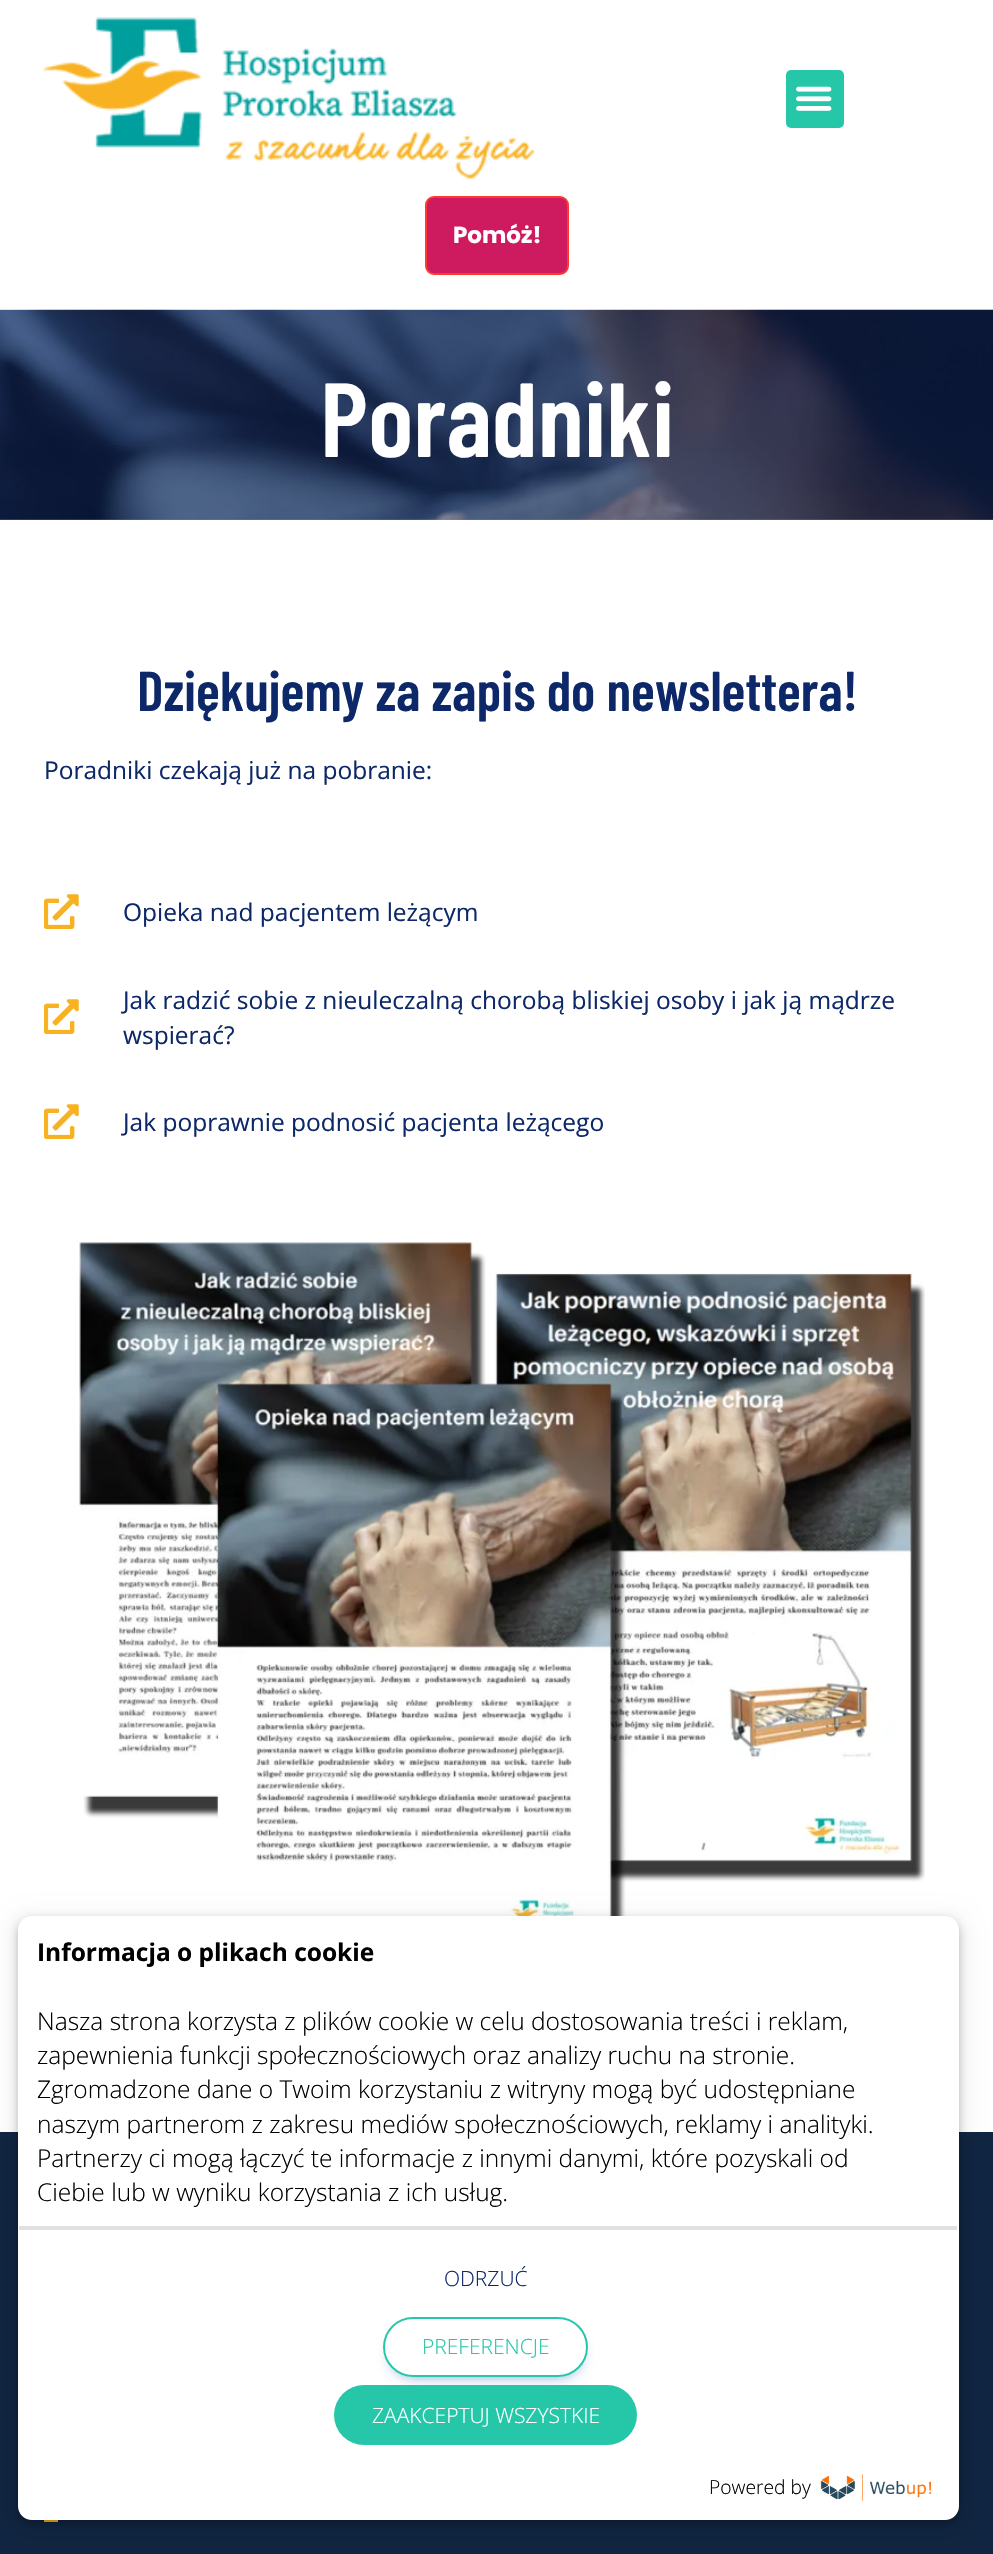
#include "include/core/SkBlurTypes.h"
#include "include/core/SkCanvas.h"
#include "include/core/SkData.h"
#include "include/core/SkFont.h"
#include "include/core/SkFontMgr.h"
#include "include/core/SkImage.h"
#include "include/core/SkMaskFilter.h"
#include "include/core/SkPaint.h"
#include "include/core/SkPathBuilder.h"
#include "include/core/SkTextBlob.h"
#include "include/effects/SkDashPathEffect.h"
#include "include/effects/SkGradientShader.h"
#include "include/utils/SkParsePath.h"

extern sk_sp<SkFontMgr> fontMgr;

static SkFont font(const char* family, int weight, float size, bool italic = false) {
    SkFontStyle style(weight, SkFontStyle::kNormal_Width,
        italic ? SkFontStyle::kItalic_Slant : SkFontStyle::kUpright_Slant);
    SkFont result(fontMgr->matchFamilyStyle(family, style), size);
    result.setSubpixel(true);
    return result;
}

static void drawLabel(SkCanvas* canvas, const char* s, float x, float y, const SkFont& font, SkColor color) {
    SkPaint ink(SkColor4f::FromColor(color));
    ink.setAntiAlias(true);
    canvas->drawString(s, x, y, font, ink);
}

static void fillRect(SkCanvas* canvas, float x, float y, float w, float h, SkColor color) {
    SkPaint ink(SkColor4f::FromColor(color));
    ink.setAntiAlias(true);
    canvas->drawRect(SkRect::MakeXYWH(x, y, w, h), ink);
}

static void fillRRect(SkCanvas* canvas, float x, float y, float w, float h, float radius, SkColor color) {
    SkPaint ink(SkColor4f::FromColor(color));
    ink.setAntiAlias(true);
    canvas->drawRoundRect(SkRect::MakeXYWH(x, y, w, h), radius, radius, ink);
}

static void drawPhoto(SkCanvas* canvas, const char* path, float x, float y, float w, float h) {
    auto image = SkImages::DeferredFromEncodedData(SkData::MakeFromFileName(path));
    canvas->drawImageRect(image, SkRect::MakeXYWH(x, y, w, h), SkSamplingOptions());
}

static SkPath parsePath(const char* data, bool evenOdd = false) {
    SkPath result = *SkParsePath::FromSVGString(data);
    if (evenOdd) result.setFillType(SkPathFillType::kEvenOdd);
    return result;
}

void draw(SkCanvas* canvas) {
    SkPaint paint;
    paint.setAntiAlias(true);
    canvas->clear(0xFFFFFFFF);
    drawPhoto(canvas, "assets/img1.png", 43, 17, 492, 162);
    fillRRect(canvas, 786, 70, 58, 58, 5, 0xFF26C7A9);
    drawPhoto(canvas, "assets/img2.png", 796, 86, 36, 25);
    paint.setColor(0xFFCE1A5F);
    canvas->drawRoundRect(SkRect::MakeXYWH(426, 197, 142, 77), 8, 8, paint);
    paint.setStroke(true);
    paint.setStrokeWidth(2);
    paint.setColor(0xFFFF3A2D);
    canvas->drawRoundRect(SkRect::MakeXYWH(426, 197, 142, 77), 8, 8, paint);
    SkFont font1 = font("Poppins", 700, 23);
    drawLabel(canvas, "Pomóż!", 453, 243, font1, 0xFFFFFFFF);
    drawPhoto(canvas, "assets/img3.png", 0, 309, 993, 211);
    fillRect(canvas, 0, 310, 993, 210, 0x800D2868);
    SkFont font2 = font("Barlow Condensed", 600, 105);
    drawLabel(canvas, "Poradniki", 320, 457, font2, 0xFFFFFFFF);
    SkFont font3 = font("Barlow Condensed", 600, 56);
    drawLabel(canvas, "Dziękujemy za zapis do newslettera!", 137, 711, font3, 0xFF0D2868);
    SkFont font4 = font("Open Sans", 400, 24.5f);
    drawLabel(canvas, "Poradniki czekają już na pobranie:", 44, 779, font4, 0xFF0D2868);
    drawPhoto(canvas, "assets/img4.png", 44, 894, 35, 35);
    drawLabel(canvas, "Opieka nad pacjentem leżącym", 123, 921, font4, 0xFF0D2868);
    drawPhoto(canvas, "assets/img4.png", 44, 999, 35, 35);
    drawLabel(canvas, "Jak radzić sobie z nieuleczalną chorobą bliskiej osoby i jak ją mądrze", 123, 1009, font4, 0xFF0D2868);
    drawLabel(canvas, "wspierać?", 123, 1044, font4, 0xFF0D2868);
    drawPhoto(canvas, "assets/img4.png", 44, 1104, 35, 35);
    drawLabel(canvas, "Jak poprawnie podnosić pacjenta leżącego", 123, 1131, font4, 0xFF0D2868);
    drawPhoto(canvas, "assets/img5.png", 79, 1242, 846, 674);
    fillRect(canvas, 0, 2132, 993, 422, 0xFF102541);
    fillRect(canvas, 44, 2520, 14, 2, 0xFFF8B121);
    paint.setStroke(false);
    paint.setColor(0x0D000000);
    paint.setMaskFilter(SkMaskFilter::MakeBlur(kNormal_SkBlurStyle, 9));
    canvas->drawRoundRect(SkRect::MakeXYWH(9, 1913, 959, 621), 23, 23, paint);
    paint.setMaskFilter(nullptr);
    paint.setColor(0x40000000);
    paint.setMaskFilter(SkMaskFilter::MakeBlur(kNormal_SkBlurStyle, 4.5f));
    canvas->drawRoundRect(SkRect::MakeXYWH(18, 1920, 941, 604), 14, 14, paint);
    paint.setMaskFilter(nullptr);
    paint.setColor(0xFFFFFFFF);
    canvas->drawRoundRect(SkRect::MakeXYWH(19, 1917, 939, 602), 13, 13, paint);
    paint.setStroke(true);
    canvas->drawRoundRect(SkRect::MakeXYWH(19, 1917, 939, 602), 13, 13, paint);
    SkFont font5 = font("Open Sans", 700, 24.5f);
    drawLabel(canvas, "Informacja o plikach cookie", 37, 1961, font5, 0xFF000000);
    SkFont font6 = font("Open Sans", 300, 24.5f);
    drawLabel(canvas, "Nasza strona korzysta z plików cookie w celu dostosowania treści i reklam,", 37, 2030, font6, 0xFF000000);
    drawLabel(canvas, "zapewnienia funkcji społecznościowych oraz analizy ruchu na stronie.", 37, 2064, font6, 0xFF000000);
    drawLabel(canvas, "Zgromadzone dane o Twoim korzystaniu z witryny mogą być udostępniane", 37, 2098, font6, 0xFF000000);
    drawLabel(canvas, "naszym partnerom z zakresu mediów społecznościowych, reklamy i analityki.", 37, 2133, font6, 0xFF000000);
    drawLabel(canvas, "Partnerzy ci mogą łączyć te informacje z innymi danymi, które pozyskali od", 37, 2167, font6, 0xFF000000);
    drawLabel(canvas, "Ciebie lub w wyniku korzystania z ich usług.", 37, 2201, font6, 0xFF000000);
    fillRect(canvas, 19, 2226, 938, 4, 0xFFE1E1E1);
    SkFont font7 = font("Open Sans", 300, 21);
    drawLabel(canvas, "ODRZUĆ", 444, 2286, font7, 0xFF0D2868);
    canvas->save();
    canvas->clipPath(parsePath("M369 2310H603V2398H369ZM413 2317H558C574.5 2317 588 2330.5 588 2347C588 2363.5 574.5 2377 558 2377H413C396.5 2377 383 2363.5 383 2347C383 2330.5 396.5 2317 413 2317Z", true), true);
    paint.setStroke(false);
    paint.setColor(0xFF386BC0);
    paint.setMaskFilter(SkMaskFilter::MakeBlur(kNormal_SkBlurStyle, 8));
    canvas->drawRoundRect(SkRect::MakeXYWH(394, 2335, 184, 38), 19, 19, paint);
    paint.setMaskFilter(nullptr);
    canvas->restore();
    paint.setStroke(true);
    paint.setColor(0xFF26C7A9);
    canvas->drawRoundRect(SkRect::MakeXYWH(384, 2318, 203, 58), 29, 29, paint);
    drawLabel(canvas, "PREFERENCJE", 422, 2354, font7, 0xFF26C7A9);
    fillRRect(canvas, 334, 2385, 303, 60, 30, 0xFF26C7A9);
    drawLabel(canvas, "ZAAKCEPTUJ WSZYSTKIE", 372, 2423, font7, 0xFFFFFFFF);
    SkFont font8 = font("Open Sans", 300, 19.25f);
    drawLabel(canvas, "Powered by", 709, 2494, font8, 0xFF000000);
    drawPhoto(canvas, "assets/img6.png", 820, 2474, 111, 27);
}
